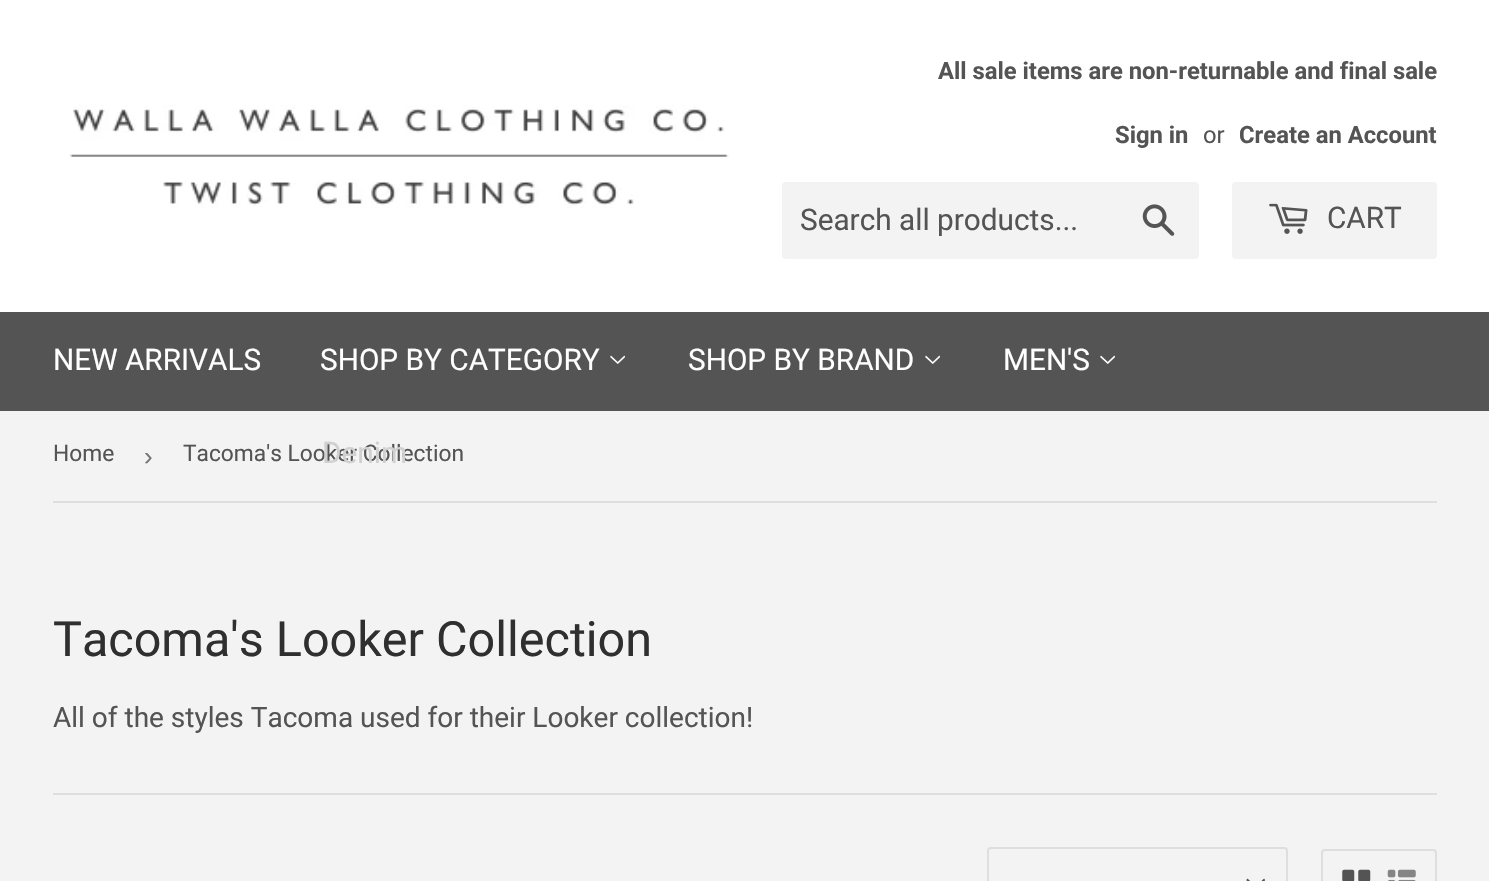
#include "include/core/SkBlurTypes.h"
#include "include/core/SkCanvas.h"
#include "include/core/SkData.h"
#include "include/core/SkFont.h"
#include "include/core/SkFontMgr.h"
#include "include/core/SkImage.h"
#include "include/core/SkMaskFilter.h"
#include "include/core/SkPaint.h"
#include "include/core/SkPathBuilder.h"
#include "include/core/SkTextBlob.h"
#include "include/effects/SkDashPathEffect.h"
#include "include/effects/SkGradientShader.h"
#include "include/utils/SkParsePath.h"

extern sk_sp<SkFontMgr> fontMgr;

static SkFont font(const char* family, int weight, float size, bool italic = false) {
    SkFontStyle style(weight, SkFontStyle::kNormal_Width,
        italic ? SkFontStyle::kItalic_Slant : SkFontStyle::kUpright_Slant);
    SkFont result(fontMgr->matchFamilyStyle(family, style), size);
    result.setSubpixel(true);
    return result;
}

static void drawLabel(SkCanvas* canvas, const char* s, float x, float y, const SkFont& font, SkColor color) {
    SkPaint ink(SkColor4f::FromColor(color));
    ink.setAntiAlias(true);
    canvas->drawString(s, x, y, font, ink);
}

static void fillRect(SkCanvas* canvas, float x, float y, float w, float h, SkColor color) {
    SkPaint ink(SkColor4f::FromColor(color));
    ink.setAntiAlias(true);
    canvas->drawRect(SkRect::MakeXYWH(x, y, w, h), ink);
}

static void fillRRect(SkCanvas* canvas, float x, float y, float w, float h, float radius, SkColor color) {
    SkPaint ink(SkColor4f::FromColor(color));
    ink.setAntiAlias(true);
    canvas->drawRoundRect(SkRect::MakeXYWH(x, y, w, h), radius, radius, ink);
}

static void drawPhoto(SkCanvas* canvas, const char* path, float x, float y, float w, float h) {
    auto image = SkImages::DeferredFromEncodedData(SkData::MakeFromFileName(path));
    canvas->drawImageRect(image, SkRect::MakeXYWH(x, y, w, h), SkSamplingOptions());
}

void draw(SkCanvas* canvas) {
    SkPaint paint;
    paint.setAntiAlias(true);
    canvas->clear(0xFFF3F3F3);
    fillRect(canvas, 0, 0, 1489, 312, 0xFFFFFFFF);
    drawPhoto(canvas, "assets/img1.png", 69, 105, 660, 103);
    SkFont font1 = font("Roboto", 700, 23.8f);
    drawLabel(canvas, "All sale items are non-returnable and final sale", 938, 79, font1, 0xFF545454);
    drawLabel(canvas, "Sign in", 1115, 143, font1, 0xFF545454);
    SkFont font2 = font("Roboto", 400, 23.8f);
    drawLabel(canvas, "or", 1203, 143, font2, 0xFF545454);
    drawLabel(canvas, "Create an Account", 1239, 143, font1, 0xFF545454);
    fillRRect(canvas, 782, 182, 417, 77, 4, 0xFFF3F3F3);
    SkFont font3 = font("Roboto", 400, 29.75f);
    drawLabel(canvas, "Search all products...", 800, 230, font3, 0xFF545454);
    drawPhoto(canvas, "assets/img2.png", 1142, 204, 33, 32);
    fillRRect(canvas, 1232, 182, 205, 77, 4, 0xFFF3F3F3);
    drawPhoto(canvas, "assets/img3.png", 1269, 203, 39, 31);
    drawLabel(canvas, "CART", 1327, 228, font3, 0xFF545454);
    fillRect(canvas, 0, 312, 1489, 99, 0xFF545454);
    drawLabel(canvas, "NEW ARRIVALS", 53, 370, font3, 0xFFFFFFFF);
    drawLabel(canvas, "SHOP BY CATEGORY", 320, 370, font3, 0xFFFFFFFF);
    drawPhoto(canvas, "assets/img4.png", 610, 355, 15, 9);
    SkFont font4 = font("Roboto", 400, 22.75f);
    drawLabel(canvas, "Tacoma's Looker Collection", 183, 461, font4, 0xFF545454);
    drawLabel(canvas, "Denim", 322, 463, font3, 0xFFD0D0D0);
    drawLabel(canvas, "SHOP BY BRAND", 688, 370, font3, 0xFFFFFFFF);
    drawPhoto(canvas, "assets/img4.png", 925, 355, 15, 9);
    drawLabel(canvas, "MEN'S", 1003, 370, font3, 0xFFFFFFFF);
    drawPhoto(canvas, "assets/img4.png", 1100, 355, 15, 9);
    fillRect(canvas, 53, 501, 1384, 2, 0xFFDEDEDE);
    drawLabel(canvas, "Home", 53, 461, font4, 0xFF545454);
    SkFont font5 = font("Liberation Sans", 400, 26);
    drawLabel(canvas, "›", 144, 465, font5, 0xFF767676);
    SkFont font6 = font("Roboto", 400, 48.5f);
    drawLabel(canvas, "Tacoma's Looker Collection", 53, 656, font6, 0xFF2F2F2F);
    SkFont font7 = font("Roboto", 400, 28);
    drawLabel(canvas, "All of the styles Tacoma used for their Looker collection!", 53, 727, font7, 0xFF545454);
    fillRect(canvas, 53, 793, 1384, 2, 0xFFDEDEDE);
    drawPhoto(canvas, "assets/img5.png", 1246, 878, 19, 3);
    paint.setStroke(true);
    paint.setStrokeWidth(2);
    paint.setColor(0xFFDEDEDE);
    canvas->drawRoundRect(SkRect::MakeXYWH(988, 848, 299, 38), 3, 3, paint);
    canvas->drawRoundRect(SkRect::MakeXYWH(1322, 850, 114, 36), 3, 3, paint);
    drawPhoto(canvas, "assets/img6.png", 1342, 869, 29, 12);
    drawPhoto(canvas, "assets/img7.png", 1387, 869, 29, 12);
}
